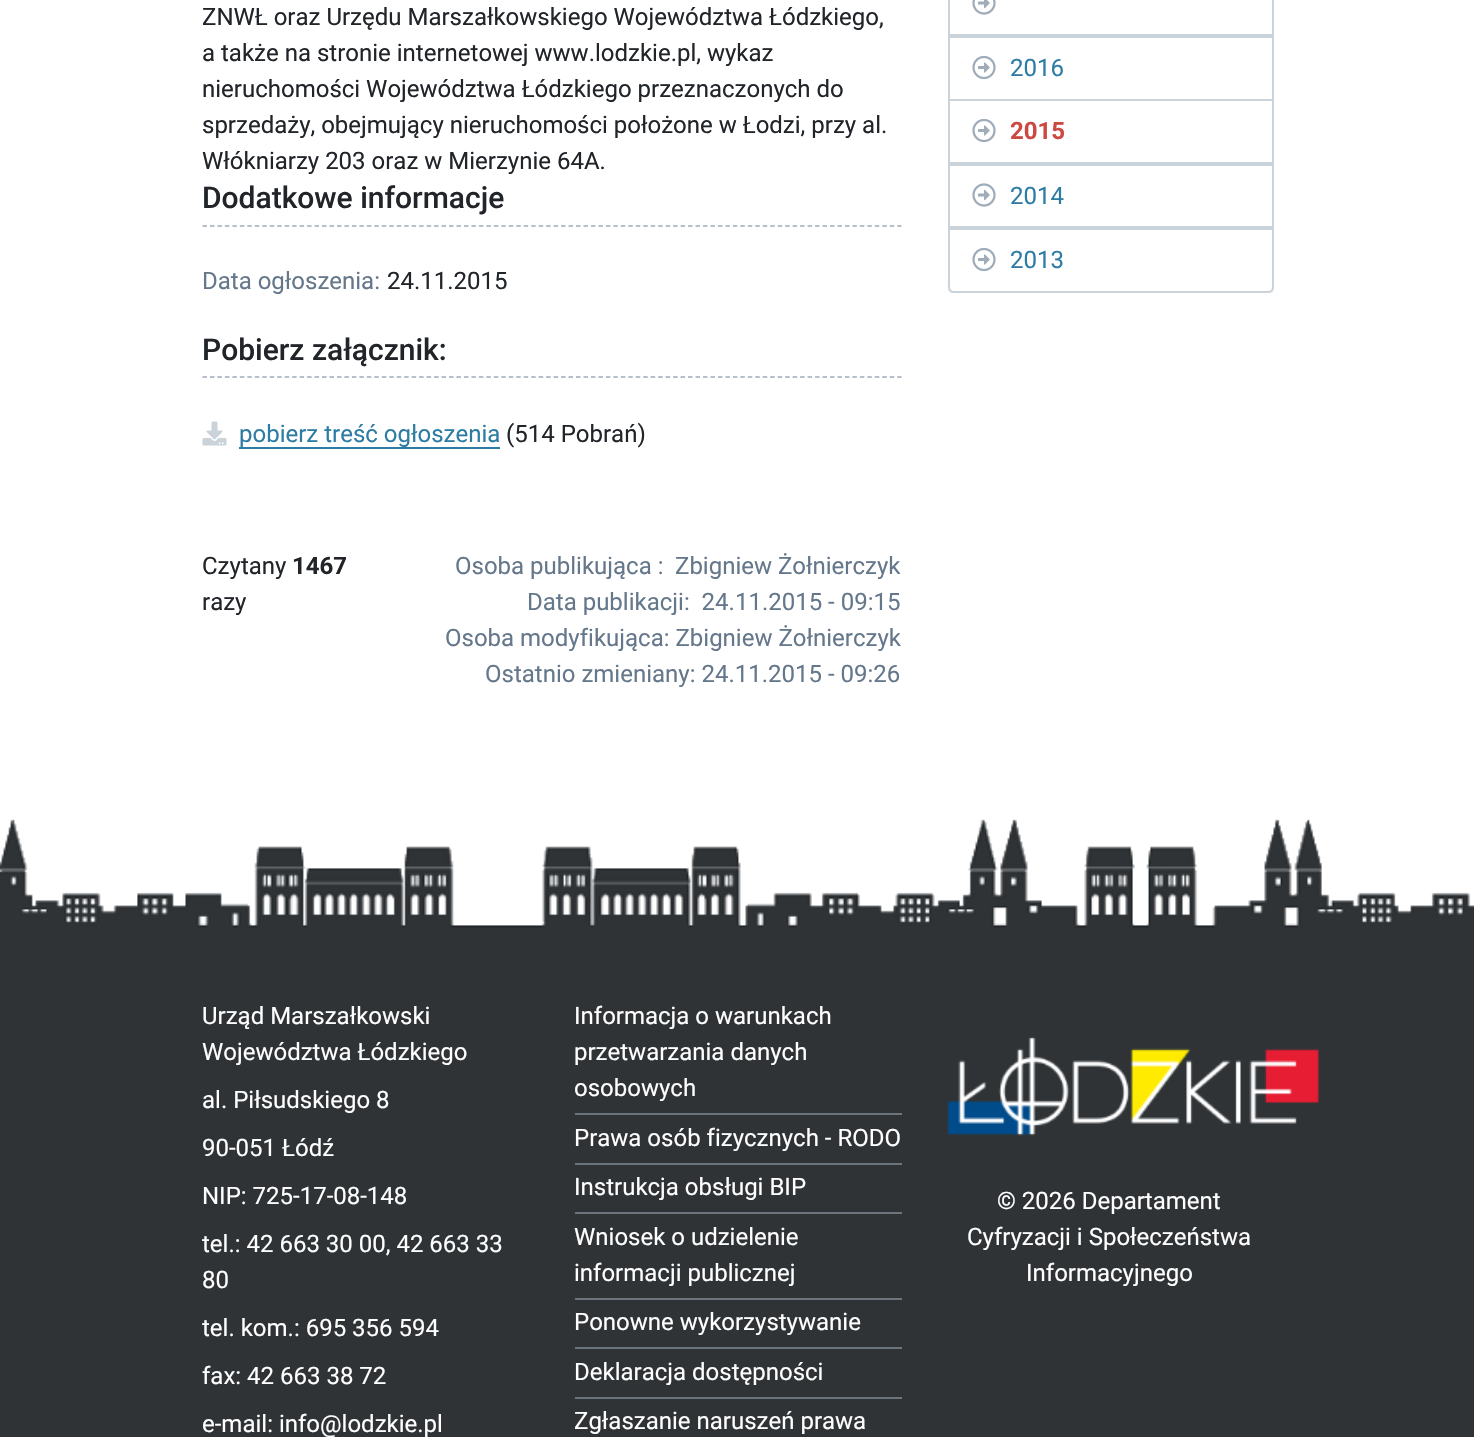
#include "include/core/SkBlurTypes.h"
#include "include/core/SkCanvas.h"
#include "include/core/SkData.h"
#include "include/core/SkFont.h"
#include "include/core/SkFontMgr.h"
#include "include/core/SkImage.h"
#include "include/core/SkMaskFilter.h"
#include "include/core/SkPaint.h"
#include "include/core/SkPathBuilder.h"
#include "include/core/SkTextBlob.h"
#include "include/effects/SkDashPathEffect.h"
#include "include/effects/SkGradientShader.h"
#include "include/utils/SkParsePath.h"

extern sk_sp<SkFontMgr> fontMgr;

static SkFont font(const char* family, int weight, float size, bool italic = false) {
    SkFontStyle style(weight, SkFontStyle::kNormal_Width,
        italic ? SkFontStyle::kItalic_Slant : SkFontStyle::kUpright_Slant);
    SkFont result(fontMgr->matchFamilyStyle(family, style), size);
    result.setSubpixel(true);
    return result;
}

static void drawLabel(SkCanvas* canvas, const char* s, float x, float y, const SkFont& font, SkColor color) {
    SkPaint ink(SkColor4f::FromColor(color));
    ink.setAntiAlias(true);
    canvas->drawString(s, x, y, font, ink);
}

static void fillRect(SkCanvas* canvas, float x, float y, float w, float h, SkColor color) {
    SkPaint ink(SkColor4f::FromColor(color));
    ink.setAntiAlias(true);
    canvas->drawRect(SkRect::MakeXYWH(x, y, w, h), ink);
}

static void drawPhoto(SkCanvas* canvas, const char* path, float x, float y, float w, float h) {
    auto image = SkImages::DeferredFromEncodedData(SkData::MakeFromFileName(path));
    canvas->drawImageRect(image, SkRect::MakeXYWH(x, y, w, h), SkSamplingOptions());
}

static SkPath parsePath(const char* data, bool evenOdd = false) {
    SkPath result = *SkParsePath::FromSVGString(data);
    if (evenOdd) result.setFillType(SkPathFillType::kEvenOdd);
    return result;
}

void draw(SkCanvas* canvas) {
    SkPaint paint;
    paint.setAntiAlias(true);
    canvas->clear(0xFFFFFFFF);
    SkFont font1 = font("Roboto", 400, 24);
    drawLabel(canvas, "ZNWŁ oraz Urzędu Marszałkowskiego Województwa Łódzkiego,", 202, 25, font1, 0xFF212529);
    drawLabel(canvas, "a także na stronie internetowej www.lodzkie.pl, wykaz", 202, 61, font1, 0xFF212529);
    drawLabel(canvas, "nieruchomości Województwa Łódzkiego przeznaczonych do", 202, 97, font1, 0xFF212529);
    drawLabel(canvas, "sprzedaży, obejmujący nieruchomości położone w Łodzi, przy al.", 202, 133, font1, 0xFF212529);
    drawLabel(canvas, "Włókniarzy 203 oraz w Mierzynie 64A.", 202, 169, font1, 0xFF212529);
    paint.setStroke(true);
    paint.setStrokeWidth(1.5f);
    paint.setColor(0xFF9FACB9);
    paint.setPathEffect(SkDashPathEffect::Make({{4.5f, 2.97f}}, 0));
    canvas->drawPath(parsePath("M202.5 226H901.5"), paint);
    paint.setPathEffect(nullptr);
    SkFont font2 = font("Roboto", 500, 30);
    drawLabel(canvas, "Dodatkowe informacje", 202, 208, font2, 0xFF212529);
    drawLabel(canvas, "Data ogłoszenia:", 202, 289, font1, 0xFF65778B);
    drawLabel(canvas, "24.11.2015", 387, 289, font1, 0xFF212529);
    paint.setPathEffect(SkDashPathEffect::Make({{4.5f, 2.97f}}, 0));
    canvas->drawPath(parsePath("M202.5 377H901.5"), paint);
    paint.setPathEffect(nullptr);
    drawLabel(canvas, "Pobierz załącznik:", 202, 360, font2, 0xFF212529);
    drawPhoto(canvas, "assets/img1.png", 202, 421, 25, 25);
    drawLabel(canvas, "pobierz treść ogłoszenia", 239, 442, font1, 0xFF2D7CA4);
    fillRect(canvas, 239, 447, 261, 2, 0xFF2D7CA4);
    drawLabel(canvas, "(514 Pobrań)", 506, 442, font1, 0xFF212529);
    drawLabel(canvas, "Czytany", 202, 574, font1, 0xFF212529);
    SkFont font3 = font("Roboto", 700, 24);
    drawLabel(canvas, "1467", 292, 574, font3, 0xFF212529);
    drawLabel(canvas, "razy", 202, 610, font1, 0xFF212529);
    drawLabel(canvas, "Osoba publikująca :", 455, 574, font1, 0xFF65778B);
    drawLabel(canvas, "Zbigniew Żołnierczyk", 675, 574, font1, 0xFF65778B);
    drawLabel(canvas, "Data publikacji:  24.11.2015 - 09:15", 527, 610, font1, 0xFF65778B);
    drawLabel(canvas, "Osoba modyfikująca: Zbigniew Żołnierczyk", 445, 646, font1, 0xFF65778B);
    drawLabel(canvas, "Ostatnio zmieniany: 24.11.2015 - 09:26", 485, 682, font1, 0xFF65778B);
    paint.setStrokeWidth(2);
    paint.setColor(0xFFCBD3DA);
    canvas->drawRect(SkRect::MakeXYWH(949, -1, 324, 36), paint);
    drawPhoto(canvas, "assets/img2.png", 972, 0, 24, 15);
    canvas->drawRect(SkRect::MakeXYWH(949, 37, 324, 63), paint);
    drawPhoto(canvas, "assets/img3.png", 972, 55, 24, 25);
    drawLabel(canvas, "2016", 1010, 76, font1, 0xFF2D7CA4);
    canvas->drawRect(SkRect::MakeXYWH(949, 100, 324, 63), paint);
    drawPhoto(canvas, "assets/img3.png", 972, 118, 24, 25);
    drawLabel(canvas, "2015", 1010, 139, font3, 0xFFCB4942);
    canvas->drawRect(SkRect::MakeXYWH(949, 165, 324, 62), paint);
    drawPhoto(canvas, "assets/img4.png", 972, 183, 24, 24);
    drawLabel(canvas, "2014", 1010, 204, font1, 0xFF2D7CA4);
    canvas->drawPath(parsePath("M949 229H1273V287C1273 290 1271 292 1268 292H954C951 292 949 290 949 287Z"), paint);
    drawPhoto(canvas, "assets/img3.png", 972, 247, 24, 25);
    drawLabel(canvas, "2013", 1010, 268, font1, 0xFF2D7CA4);
    drawPhoto(canvas, "assets/img5.png", 0, 819, 1474, 144);
    fillRect(canvas, 0, 963, 1474, 474, 0xFF2F3336);
    drawLabel(canvas, "Urząd Marszałkowski", 202, 1024, font1, 0xFFFFFFFF);
    drawLabel(canvas, "Województwa Łódzkiego", 202, 1060, font1, 0xFFFFFFFF);
    drawLabel(canvas, "al. Piłsudskiego 8", 202, 1108, font1, 0xFFFFFFFF);
    drawLabel(canvas, "90-051 Łódź", 202, 1156, font1, 0xFFFFFFFF);
    drawLabel(canvas, "NIP: 725-17-08-148", 202, 1204, font1, 0xFFFFFFFF);
    drawLabel(canvas, "tel.: 42 663 30 00, 42 663 33", 202, 1252, font1, 0xFFFFFFFF);
    drawLabel(canvas, "80", 202, 1288, font1, 0xFFFFFFFF);
    drawLabel(canvas, "tel. kom.: 695 356 594", 202, 1336, font1, 0xFFFFFFFF);
    drawLabel(canvas, "fax: 42 663 38 72", 202, 1384, font1, 0xFFFFFFFF);
    drawLabel(canvas, "e-mail: info@lodzkie.pl", 202, 1432, font1, 0xFFFFFFFF);
    fillRect(canvas, 575, 1113, 327, 2, 0xFF6C757D);
    drawLabel(canvas, "Informacja o warunkach", 574, 1024, font1, 0xFFFFFFFF);
    drawLabel(canvas, "przetwarzania danych", 574, 1060, font1, 0xFFFFFFFF);
    drawLabel(canvas, "osobowych", 574, 1096, font1, 0xFFFFFFFF);
    fillRect(canvas, 575, 1163, 327, 2, 0xFF6C757D);
    drawLabel(canvas, "Prawa osób fizycznych - RODO", 574, 1146, font1, 0xFFFFFFFF);
    fillRect(canvas, 575, 1212, 327, 2, 0xFF6C757D);
    drawLabel(canvas, "Instrukcja obsługi BIP", 574, 1195, font1, 0xFFFFFFFF);
    fillRect(canvas, 575, 1298, 327, 2, 0xFF6C757D);
    drawLabel(canvas, "Wniosek o udzielenie", 574, 1245, font1, 0xFFFFFFFF);
    drawLabel(canvas, "informacji publicznej", 574, 1281, font1, 0xFFFFFFFF);
    fillRect(canvas, 575, 1347, 327, 2, 0xFF6C757D);
    drawLabel(canvas, "Ponowne wykorzystywanie", 574, 1330, font1, 0xFFFFFFFF);
    fillRect(canvas, 575, 1397, 327, 2, 0xFF6C757D);
    drawLabel(canvas, "Deklaracja dostępności", 574, 1380, font1, 0xFFFFFFFF);
    drawLabel(canvas, "Zgłaszanie naruszeń prawa", 574, 1429, font1, 0xFFFFFFFF);
    drawPhoto(canvas, "assets/img6.png", 947, 1037, 372, 99);
    drawLabel(canvas, "© 2026 Departament", 997, 1209, font1, 0xFFFFFFFF);
    drawLabel(canvas, "Cyfryzacji i Społeczeństwa", 967, 1245, font1, 0xFFFFFFFF);
    drawLabel(canvas, "Informacyjnego", 1026, 1281, font1, 0xFFFFFFFF);
}
